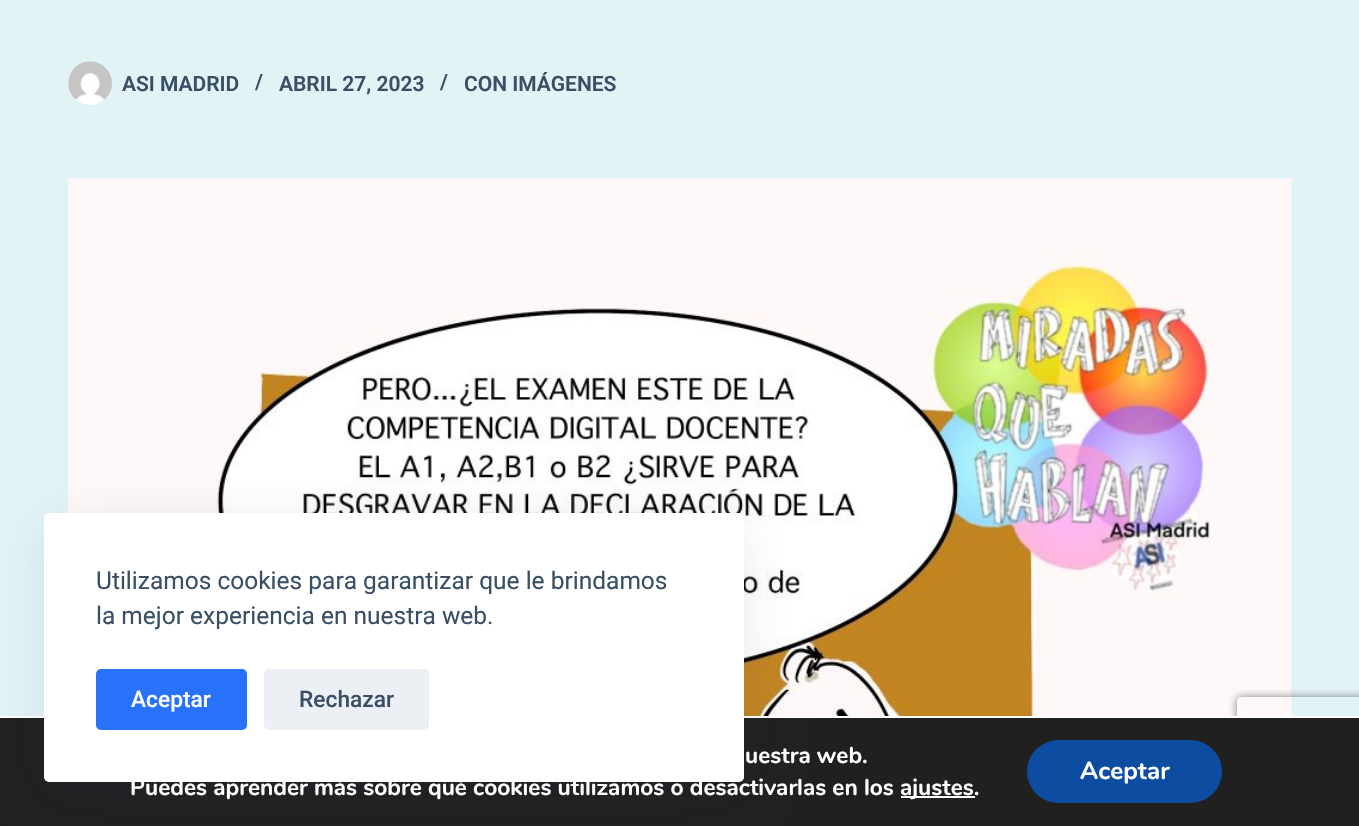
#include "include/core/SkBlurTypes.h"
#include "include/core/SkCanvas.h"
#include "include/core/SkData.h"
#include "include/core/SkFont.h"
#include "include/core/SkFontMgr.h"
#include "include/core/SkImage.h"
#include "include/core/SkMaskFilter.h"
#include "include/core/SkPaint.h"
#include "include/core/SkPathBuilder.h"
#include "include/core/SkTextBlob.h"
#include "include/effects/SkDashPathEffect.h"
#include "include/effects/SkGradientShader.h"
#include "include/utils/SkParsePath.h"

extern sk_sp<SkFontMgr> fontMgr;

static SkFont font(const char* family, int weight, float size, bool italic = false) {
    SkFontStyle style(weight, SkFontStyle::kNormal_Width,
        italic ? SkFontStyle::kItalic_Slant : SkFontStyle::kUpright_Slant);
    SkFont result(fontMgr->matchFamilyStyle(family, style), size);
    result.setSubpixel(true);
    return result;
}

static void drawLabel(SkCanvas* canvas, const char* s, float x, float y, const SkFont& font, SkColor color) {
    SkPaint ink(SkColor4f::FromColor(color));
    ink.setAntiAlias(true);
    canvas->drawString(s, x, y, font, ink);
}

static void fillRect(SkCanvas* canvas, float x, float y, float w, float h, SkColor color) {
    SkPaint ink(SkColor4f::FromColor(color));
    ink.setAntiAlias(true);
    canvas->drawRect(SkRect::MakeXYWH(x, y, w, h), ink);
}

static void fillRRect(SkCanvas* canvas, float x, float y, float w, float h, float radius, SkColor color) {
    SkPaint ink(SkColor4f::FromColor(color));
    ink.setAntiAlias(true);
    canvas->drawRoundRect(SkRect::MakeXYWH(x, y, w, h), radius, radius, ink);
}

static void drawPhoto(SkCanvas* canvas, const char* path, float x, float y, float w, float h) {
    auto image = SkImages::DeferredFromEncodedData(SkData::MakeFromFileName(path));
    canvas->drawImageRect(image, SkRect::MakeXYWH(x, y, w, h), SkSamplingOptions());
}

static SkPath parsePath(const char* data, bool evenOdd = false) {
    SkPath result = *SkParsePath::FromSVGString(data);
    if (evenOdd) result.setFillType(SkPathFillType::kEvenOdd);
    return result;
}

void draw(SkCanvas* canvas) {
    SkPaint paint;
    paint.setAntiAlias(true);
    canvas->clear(0xFFE2F3F6);
    drawPhoto(canvas, "assets/img1.png", 68, 61, 44, 44);
    SkFont font1 = font("Roboto", 600, 21);
    drawLabel(canvas, "ASI MADRID", 122, 91, font1, 0xFF3A4F66);
    drawLabel(canvas, "/", 255, 89, font1, 0xFF3A4F66);
    drawLabel(canvas, "ABRIL 27, 2023", 279, 91, font1, 0xFF3A4F66);
    drawLabel(canvas, "/", 440, 89, font1, 0xFF3A4F66);
    drawLabel(canvas, "CON IMÁGENES", 464, 91, font1, 0xFF3A4F66);
    drawPhoto(canvas, "assets/img2.png", 68, 178, 1224, 538);
    canvas->save();
    canvas->clipPath(parsePath("M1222 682H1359V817H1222ZM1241 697H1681C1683 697 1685 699 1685 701V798C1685 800 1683 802 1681 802H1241C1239 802 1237 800 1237 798V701C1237 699 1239 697 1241 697Z", true), true);
    paint.setColor(0xFF808080);
    paint.setMaskFilter(SkMaskFilter::MakeBlur(kNormal_SkBlurStyle, 4.5f));
    canvas->drawRoundRect(SkRect::MakeXYWH(1237, 697, 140, 105), 4, 4, paint);
    paint.setMaskFilter(nullptr);
    canvas->restore();
    fillRect(canvas, 0, 718, 1359, 108, 0xFF202020);
    fillRect(canvas, 0, 716, 1359, 2, 0xFFFFFFFF);
    paint.setColor(0x26223865);
    paint.setMaskFilter(SkMaskFilter::MakeBlur(kNormal_SkBlurStyle, 26));
    canvas->drawRect(SkRect::MakeXYWH(53, 530, 682, 252), paint);
    paint.setMaskFilter(nullptr);
    fillRRect(canvas, 44, 513, 700, 269, 5, 0xFFFFFFFF);
    SkFont font2 = font("Roboto", 400, 24.5f);
    drawLabel(canvas, "Utilizamos cookies para garantizar que le brindamos", 96, 589, font2, 0xFF3A4F66);
    drawLabel(canvas, "la mejor experiencia en nuestra web.", 96, 624, font2, 0xFF3A4F66);
    fillRRect(canvas, 96, 669, 151, 61, 5, 0xFF2872FA);
    SkFont font3 = font("Roboto", 500, 22.75f);
    drawLabel(canvas, "Aceptar", 131, 707, font3, 0xFFFFFFFF);
    fillRRect(canvas, 264, 669, 165, 61, 5, 0xFFECEFF3);
    drawLabel(canvas, "Rechazar", 299, 707, font3, 0xFF3A4F66);
    SkFont font4 = font("Nunito", 700, 22.75f);
    drawLabel(canvas, "uestra web.", 745, 763, font4, 0xFFFFFFFF);
    drawLabel(canvas, "Puedes aprender más sobre qué cookies utilizamos o desactivarlas en los", 130, 795, font4, 0xFFFFFFFF);
    fillRect(canvas, 901, 796, 74, 2, 0xFFFFFFFF);
    drawLabel(canvas, "ajustes.", 900, 795, font4, 0xFFFFFFFF);
    fillRRect(canvas, 1027, 740, 195, 63, 31.5f, 0xFF0C4DA2);
    SkFont font5 = font("Nunito", 700, 24.5f);
    drawLabel(canvas, "Aceptar", 1080, 779, font5, 0xFFFFFFFF);
}
